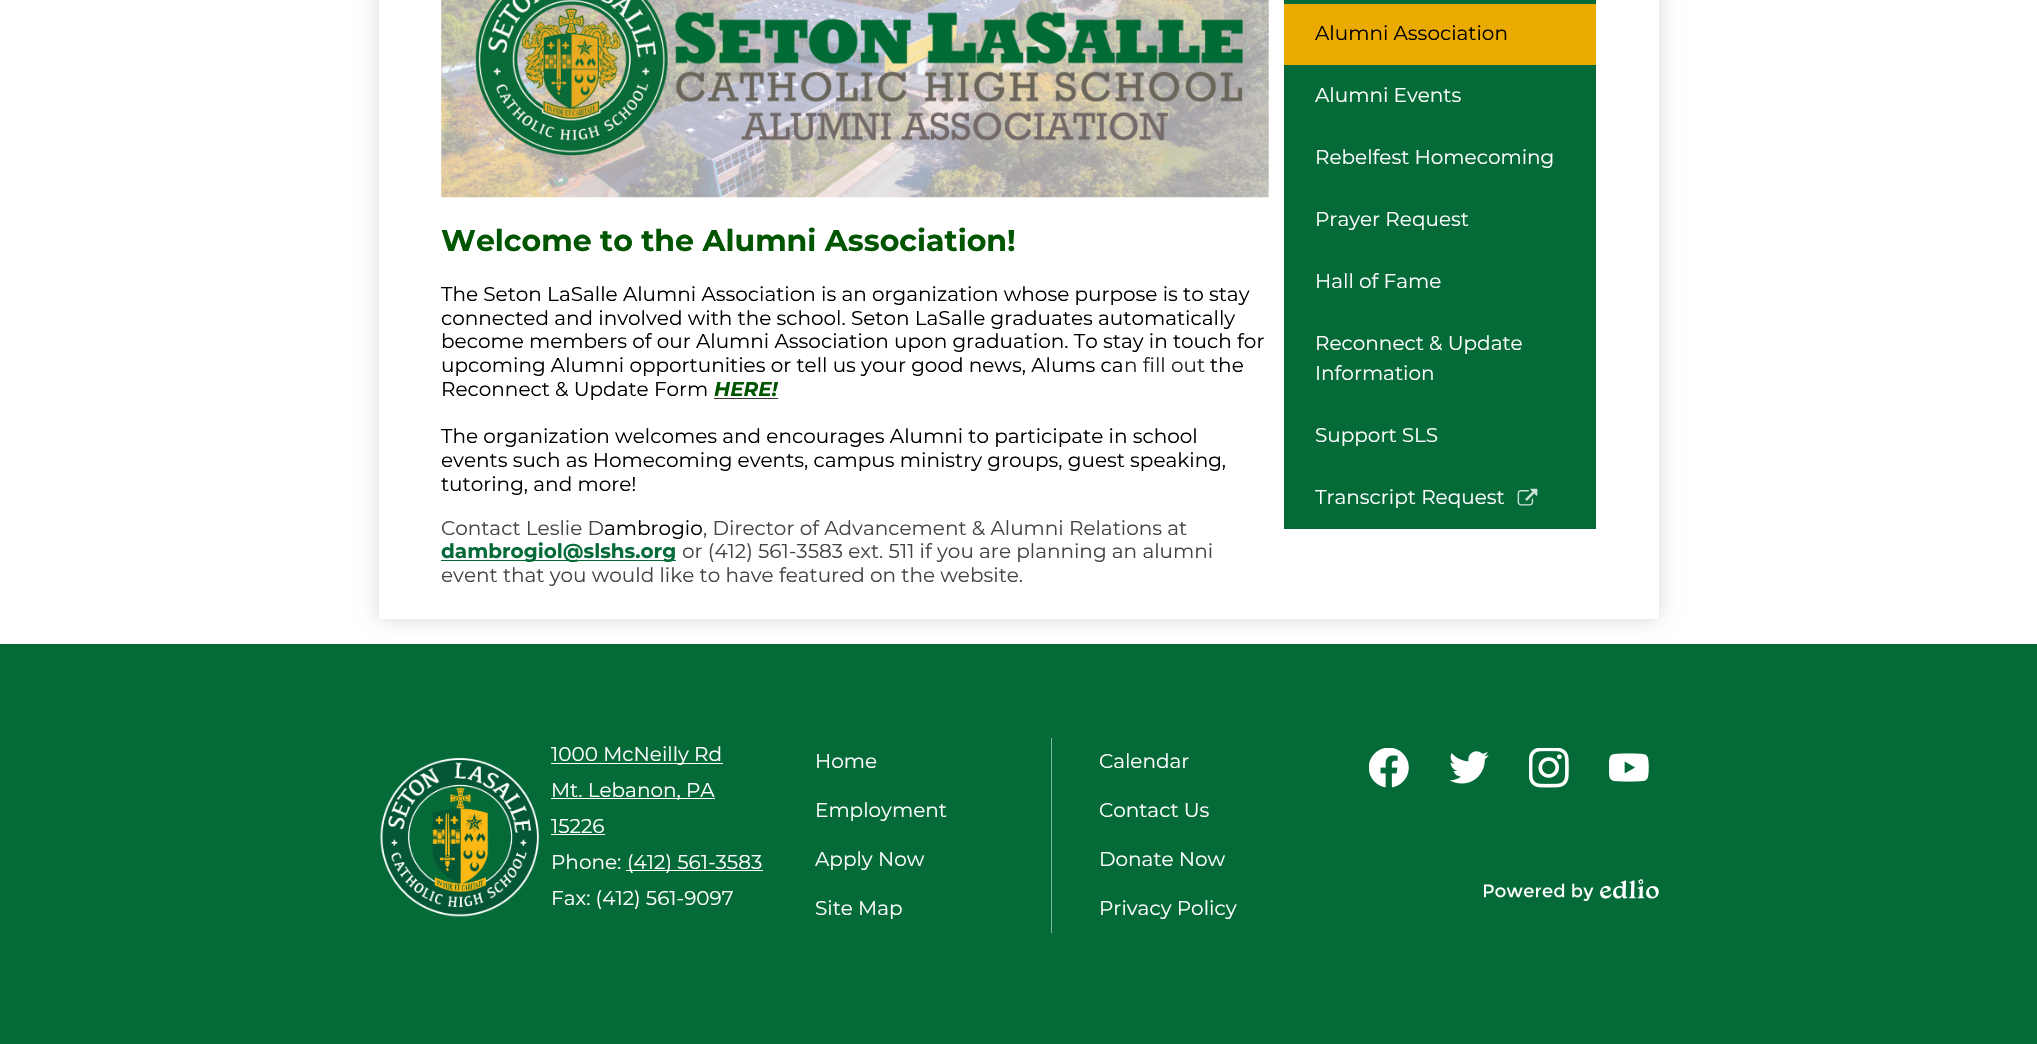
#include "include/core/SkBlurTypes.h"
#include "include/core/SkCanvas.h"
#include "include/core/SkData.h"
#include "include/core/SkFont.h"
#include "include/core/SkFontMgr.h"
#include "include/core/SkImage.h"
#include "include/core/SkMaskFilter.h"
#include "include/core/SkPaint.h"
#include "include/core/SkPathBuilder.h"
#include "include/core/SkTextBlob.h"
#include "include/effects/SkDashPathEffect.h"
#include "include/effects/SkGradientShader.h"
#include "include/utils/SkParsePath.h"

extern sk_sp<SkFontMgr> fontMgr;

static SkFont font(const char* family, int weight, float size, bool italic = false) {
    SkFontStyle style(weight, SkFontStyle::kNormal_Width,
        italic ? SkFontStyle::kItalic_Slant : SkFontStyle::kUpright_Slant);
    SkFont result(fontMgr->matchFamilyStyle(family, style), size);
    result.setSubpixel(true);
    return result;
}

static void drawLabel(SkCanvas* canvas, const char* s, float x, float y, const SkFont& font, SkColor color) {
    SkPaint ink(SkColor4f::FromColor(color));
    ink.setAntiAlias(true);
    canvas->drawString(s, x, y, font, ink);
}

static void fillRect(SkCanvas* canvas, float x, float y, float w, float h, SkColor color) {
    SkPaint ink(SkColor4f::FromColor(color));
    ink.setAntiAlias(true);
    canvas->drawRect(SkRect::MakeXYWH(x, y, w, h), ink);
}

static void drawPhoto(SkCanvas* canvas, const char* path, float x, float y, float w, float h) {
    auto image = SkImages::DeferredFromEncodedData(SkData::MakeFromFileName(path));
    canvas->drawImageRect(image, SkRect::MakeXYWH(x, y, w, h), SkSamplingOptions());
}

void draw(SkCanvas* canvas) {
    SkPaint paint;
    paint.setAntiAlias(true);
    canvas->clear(0xFFFFFFFF);
    fillRect(canvas, 0, 644, 2037, 400, 0xFF046A38);
    paint.setColor(0x26000000);
    paint.setMaskFilter(SkMaskFilter::MakeBlur(kNormal_SkBlurStyle, 9.5f));
    canvas->drawRect(SkRect::MakeXYWH(379, -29, 1280, 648), paint);
    paint.setMaskFilter(nullptr);
    fillRect(canvas, 379, 0, 1280, 619, 0xFFFFFFFF);
    drawPhoto(canvas, "assets/img1.png", 441, 0, 828, 198);
    SkFont font1 = font("Montserrat", 700, 30);
    drawLabel(canvas, "Welcome to the Alumni Association!", 441, 251, font1, 0xFF005500);
    SkFont font2 = font("Montserrat", 400, 20);
    drawLabel(canvas, "The Seton LaSalle Alumni Association is an organization whose purpose is to stay", 441, 301, font2, 0xFF000000);
    drawLabel(canvas, "connected and involved with the school. Seton LaSalle graduates automatically", 441, 325, font2, 0xFF000000);
    drawLabel(canvas, "become members of our Alumni Association upon graduation. To stay in touch for", 441, 348, font2, 0xFF000000);
    drawLabel(canvas, "upcoming Alumni opportunities or tell us your good news, Alums ca", 441, 372, font2, 0xFF000000);
    drawLabel(canvas, "n fill out", 1124, 372, font2, 0xFF282828);
    drawLabel(canvas, "the", 1210, 372, font2, 0xFF000000);
    drawLabel(canvas, "Reconnect & Update Form", 441, 396, font2, 0xFF000000);
    SkFont font3 = font("Montserrat", 700, 20, true);
    drawLabel(canvas, "HERE!", 714, 396, font3, 0xFF005500);
    fillRect(canvas, 714, 398, 64, 1, 0xFF333333);
    drawLabel(canvas, "The organization welcomes and encourages Alumni to participate in school", 441, 443, font2, 0xFF000000);
    drawLabel(canvas, "events such as Homecoming events, campus ministry groups, guest speaking,", 441, 467, font2, 0xFF000000);
    drawLabel(canvas, "tutoring, and more!", 441, 491, font2, 0xFF000000);
    drawLabel(canvas, "Contact Leslie D", 441, 535, font2, 0xFF444444);
    drawLabel(canvas, "ambrogio", 604, 535, font2, 0xFF000000);
    drawLabel(canvas, ", Director of Advancement & Alumni Relations at", 703, 535, font2, 0xFF444444);
    fillRect(canvas, 441, 560, 235, 1, 0xFF046A38);
    SkFont font4 = font("Montserrat", 700, 20);
    drawLabel(canvas, "dambrogiol@slshs.org", 441, 558, font4, 0xFF046A38);
    drawLabel(canvas, "or (412) 561-3583 ext. 511 if you are planning an alumni", 682, 558, font2, 0xFF444444);
    drawLabel(canvas, "event that you would like to have featured on the website.", 441, 582, font2, 0xFF444444);
    fillRect(canvas, 1284, 0, 312, 529, 0xFF046A38);
    fillRect(canvas, 1284, 4, 312, 61, 0xFFEAAA00);
    drawLabel(canvas, "Alumni Association", 1315, 40, font2, 0xFF000000);
    drawLabel(canvas, "Alumni Events", 1315, 102, font2, 0xFFFFFFFF);
    drawLabel(canvas, "Rebelfest Homecoming", 1315, 164, font2, 0xFFFFFFFF);
    drawLabel(canvas, "Prayer Request", 1315, 226, font2, 0xFFFFFFFF);
    drawLabel(canvas, "Hall of Fame", 1315, 288, font2, 0xFFFFFFFF);
    drawLabel(canvas, "Reconnect & Update", 1315, 350, font2, 0xFFFFFFFF);
    drawLabel(canvas, "Information", 1315, 380, font2, 0xFFFFFFFF);
    drawLabel(canvas, "Support SLS", 1315, 442, font2, 0xFFFFFFFF);
    drawLabel(canvas, "Transcript Request", 1315, 504, font2, 0xFFFFFFFF);
    drawPhoto(canvas, "assets/img2.png", 1517, 488, 21, 18);
    drawPhoto(canvas, "assets/img3.png", 380, 757, 160, 160);
    fillRect(canvas, 551, 763, 172, 1, 0xFFFFFFFF);
    drawLabel(canvas, "1000 McNeilly Rd", 551, 761, font2, 0xFFFFFFFF);
    fillRect(canvas, 551, 798, 164, 1, 0xFFFFFFFF);
    drawLabel(canvas, "Mt. Lebanon, PA", 551, 797, font2, 0xFFFFFFFF);
    drawLabel(canvas, "15226", 551, 833, font2, 0xFFFFFFFF);
    fillRect(canvas, 551, 834, 54, 1, 0xFFFFFFFF);
    drawLabel(canvas, "Phone:", 551, 869, font2, 0xFFFFFFFF);
    fillRect(canvas, 626, 870, 137, 1, 0xFFFFFFFF);
    drawLabel(canvas, "(412) 561-3583", 627, 869, font2, 0xFFFFFFFF);
    drawLabel(canvas, "Fax: (412) 561-9097", 551, 905, font2, 0xFFFFFFFF);
    drawLabel(canvas, "Home", 815, 768, font2, 0xFFFFFFFF);
    fillRect(canvas, 1051, 738, 1, 195, 0xFF82B59C);
    drawLabel(canvas, "Calendar", 1099, 768, font2, 0xFFFFFFFF);
    drawLabel(canvas, "Employment", 815, 817, font2, 0xFFFFFFFF);
    drawLabel(canvas, "Contact Us", 1099, 817, font2, 0xFFFFFFFF);
    drawLabel(canvas, "Apply Now", 815, 866, font2, 0xFFFFFFFF);
    drawLabel(canvas, "Donate Now", 1099, 866, font2, 0xFFFFFFFF);
    drawLabel(canvas, "Site Map", 815, 915, font2, 0xFFFFFFFF);
    drawLabel(canvas, "Privacy Policy", 1099, 915, font2, 0xFFFFFFFF);
    drawPhoto(canvas, "assets/img4.png", 1369, 748, 40, 40);
    drawPhoto(canvas, "assets/img5.png", 1449, 751, 40, 33);
    drawPhoto(canvas, "assets/img6.png", 1529, 748, 40, 40);
    drawPhoto(canvas, "assets/img7.png", 1609, 753, 40, 29);
    drawPhoto(canvas, "assets/img8.png", 1484, 879, 175, 23);
}
